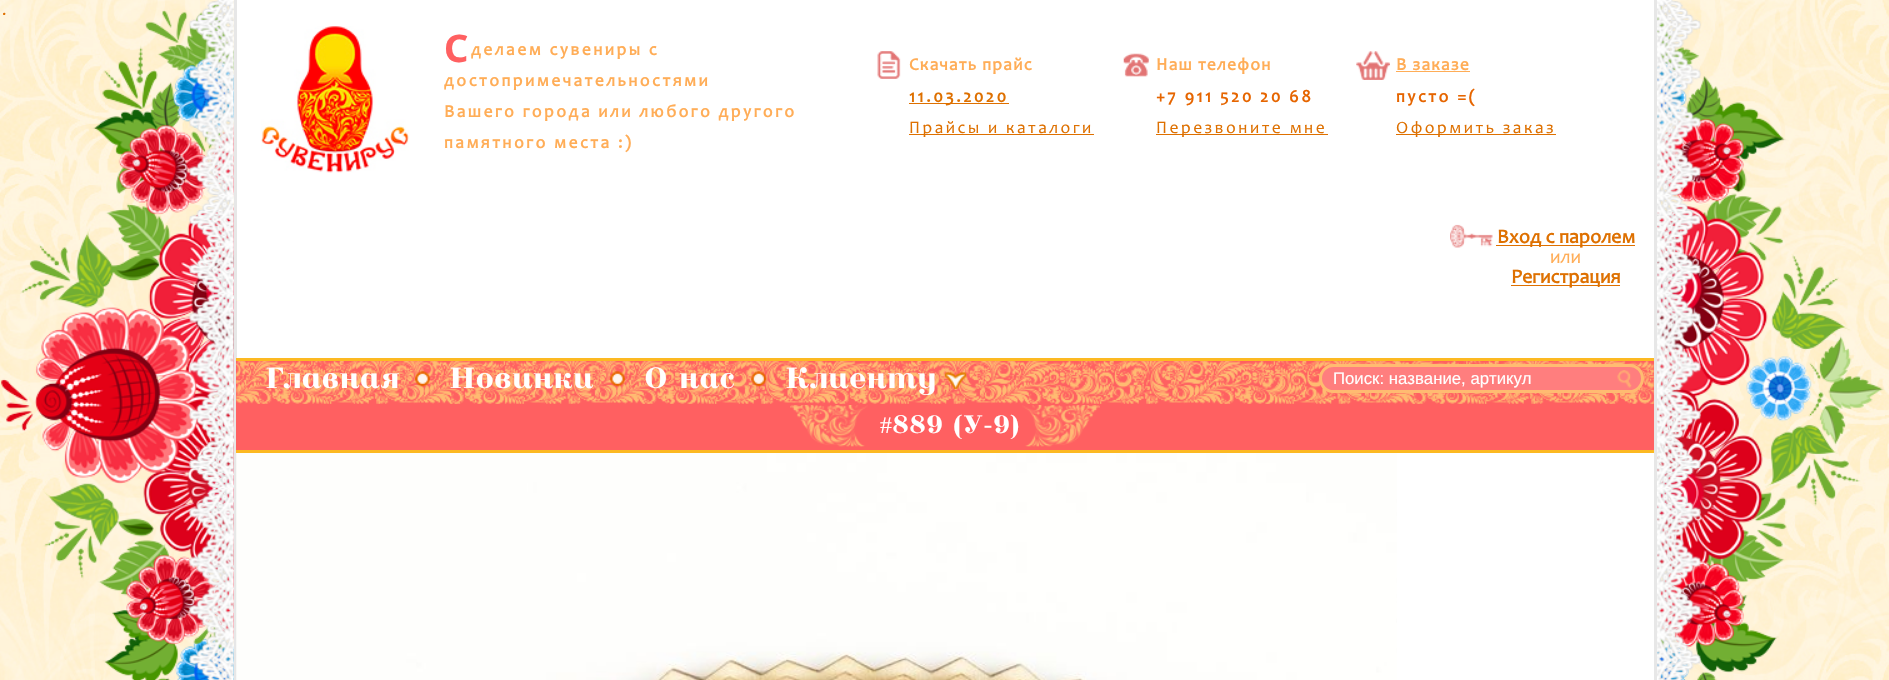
#include "include/core/SkBlurTypes.h"
#include "include/core/SkCanvas.h"
#include "include/core/SkData.h"
#include "include/core/SkFont.h"
#include "include/core/SkFontMgr.h"
#include "include/core/SkImage.h"
#include "include/core/SkMaskFilter.h"
#include "include/core/SkPaint.h"
#include "include/core/SkPathBuilder.h"
#include "include/core/SkTextBlob.h"
#include "include/effects/SkDashPathEffect.h"
#include "include/effects/SkGradientShader.h"
#include "include/utils/SkParsePath.h"

extern sk_sp<SkFontMgr> fontMgr;

static SkFont font(const char* family, int weight, float size, bool italic = false) {
    SkFontStyle style(weight, SkFontStyle::kNormal_Width,
        italic ? SkFontStyle::kItalic_Slant : SkFontStyle::kUpright_Slant);
    SkFont result(fontMgr->matchFamilyStyle(family, style), size);
    result.setSubpixel(true);
    return result;
}

static void drawLabel(SkCanvas* canvas, const char* s, float x, float y, const SkFont& font, SkColor color) {
    SkPaint ink(SkColor4f::FromColor(color));
    ink.setAntiAlias(true);
    canvas->drawString(s, x, y, font, ink);
}

static void drawTracked(SkCanvas* canvas, const char* s, float x, float y, const SkFont& font, const SkPaint& ink, float letter, float word) {
    std::vector<SkGlyphID> glyphs(font.countText(s, strlen(s), SkTextEncoding::kUTF8));
    std::vector<float> xs(glyphs.size());
    font.textToGlyphs(s, strlen(s), SkTextEncoding::kUTF8, glyphs);
    font.getXPos(glyphs, xs, x);
    float extra = 0;
    for (size_t i = 0; i < glyphs.size(); i++) {
        xs[i] += extra;
        extra += letter + word * (glyphs[i] == font.unicharToGlyph(' '));
    }
    canvas->drawTextBlob(SkTextBlob::MakeFromPosHGlyphs(glyphs, xs, y, font), 0, 0, ink);
}

static void fillRect(SkCanvas* canvas, float x, float y, float w, float h, SkColor color) {
    SkPaint ink(SkColor4f::FromColor(color));
    ink.setAntiAlias(true);
    canvas->drawRect(SkRect::MakeXYWH(x, y, w, h), ink);
}

static void drawPhoto(SkCanvas* canvas, const char* path, float x, float y, float w, float h) {
    auto image = SkImages::DeferredFromEncodedData(SkData::MakeFromFileName(path));
    canvas->drawImageRect(image, SkRect::MakeXYWH(x, y, w, h), SkSamplingOptions());
}

void draw(SkCanvas* canvas) {
    SkPaint paint;
    paint.setAntiAlias(true);
    canvas->clear(0xFFFFFFFF);
    drawPhoto(canvas, "assets/img1.png", 0, 0, 1889, 680);
    drawPhoto(canvas, "assets/img2.png", 1, 2, 233, 678);
    SkFont font1 = font("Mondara", 400, 17.5f);
    drawLabel(canvas, ".", 2, 15, font1, 0xFFDE7000);
    drawPhoto(canvas, "assets/img3.png", 1657, 5, 228, 675);
    drawPhoto(canvas, "assets/img4.png", 188, 0, 1514, 680);
    fillRect(canvas, 237, 0, 1417, 680, 0xFFFFFFFF);
    fillRect(canvas, 1654, 0, 3, 680, 0xFFE7E7E7);
    fillRect(canvas, 234, 0, 3, 680, 0xFFE7E7E7);
    drawPhoto(canvas, "assets/img5.png", 261, 26, 148, 147);
    SkFont font2 = font("Noto Sans", 700, 38);
    paint.setColor(0xFFFF6061);
    drawTracked(canvas, "С", 444, 62, font2, paint, 2.5f, 0);
    SkFont font3 = font("Mondara", 700, 17.5f);
    paint.setColor(0xFFFFAD57);
    drawTracked(canvas, "делаем сувениры с", 471, 55, font3, paint, 2.5f, 0);
    drawTracked(canvas, "достопримечательностями", 444, 86, font3, paint, 2.5f, 0);
    drawTracked(canvas, "Вашего города или любого другого", 444, 117, font3, paint, 2.5f, 0);
    drawTracked(canvas, "памятного места :)", 444, 148, font3, paint, 2.5f, 0);
    drawPhoto(canvas, "assets/img6.png", 877, 51, 24, 28);
    drawTracked(canvas, "Скачать прайс", 909, 70, font3, paint, 1.25f, 0);
    fillRect(canvas, 909, 103, 100, 1, 0xFFDE7000);
    paint.setColor(0xFFDE7000);
    drawTracked(canvas, "11.03.2020", 909, 102, font3, paint, 2.5f, 0);
    fillRect(canvas, 909, 134, 185, 1, 0xFFDE7000);
    drawTracked(canvas, "Прайсы и каталоги", 909, 133, font1, paint, 2.5f, 0);
    drawPhoto(canvas, "assets/img7.png", 1123, 53, 26, 24);
    paint.setColor(0xFFFFAD57);
    drawTracked(canvas, "Наш телефон", 1156, 70, font3, paint, 1.25f, 0);
    paint.setColor(0xFFE66500);
    drawTracked(canvas, "+7 911 520 20 68", 1156, 102, font3, paint, 2.5f, 0);
    fillRect(canvas, 1156, 134, 172, 1, 0xFFDE7000);
    paint.setColor(0xFFDE7000);
    drawTracked(canvas, "Перезвоните мне", 1156, 133, font1, paint, 2.5f, 0);
    drawPhoto(canvas, "assets/img8.png", 1356, 51, 34, 29);
    paint.setColor(0xFFFFAD57);
    drawTracked(canvas, "В заказе", 1396, 70, font3, paint, 1.25f, 0);
    fillRect(canvas, 1396, 71, 74, 1, 0xFFFFAD57);
    paint.setColor(0xFFE66500);
    drawTracked(canvas, "пусто =(", 1396, 102, font3, paint, 2.5f, 0);
    fillRect(canvas, 1396, 134, 160, 1, 0xFFDE7000);
    paint.setColor(0xFFDE7000);
    drawTracked(canvas, "Оформить заказ", 1396, 133, font1, paint, 2.5f, 0);
    drawPhoto(canvas, "assets/img9.png", 1450, 224, 43, 24);
    fillRect(canvas, 1496, 245, 139, 1, 0xFFDE7000);
    SkFont font4 = font("Mondara", 700, 20);
    drawLabel(canvas, "Вход с паролем", 1497, 243, font4, 0xFFDE7000);
    SkFont font5 = font("Mondara", 400, 20);
    drawLabel(canvas, "или", 1550, 263, font5, 0xFFFFAD57);
    fillRect(canvas, 1511, 285, 109, 1, 0xFFDE7000);
    drawLabel(canvas, "Регистрация", 1511, 283, font4, 0xFFDE7000);
    fillRect(canvas, 236, 361, 1418, 89, 0xFFFF6061);
    drawPhoto(canvas, "assets/img10.png", 236, 361, 1418, 43);
    fillRect(canvas, 236, 358, 1418, 3, 0xFFFCB922);
    fillRect(canvas, 236, 450, 1418, 3, 0xFFFCB922);
    SkFont font6 = font("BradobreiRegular", 400, 27.5f);
    drawLabel(canvas, "Главная", 265, 388, font6, 0xFFFFFFFF);
    drawPhoto(canvas, "assets/img11.png", 415, 371, 15, 16);
    drawLabel(canvas, "Новинки", 449, 388, font6, 0xFFFFFFFF);
    drawPhoto(canvas, "assets/img12.png", 610, 371, 15, 16);
    drawLabel(canvas, "О нас", 644, 388, font6, 0xFFFFFFFF);
    drawPhoto(canvas, "assets/img13.png", 751, 371, 16, 16);
    drawLabel(canvas, "Клиенту", 785, 388, font6, 0xFFFFFFFF);
    drawPhoto(canvas, "assets/img14.png", 944, 372, 23, 17);
    paint.setColor(0xFFFF7E7E);
    canvas->drawRoundRect(SkRect::MakeXYWH(1320.5f, 365.5f, 322, 26), 13, 13, paint);
    paint.setStroke(true);
    paint.setStrokeWidth(3);
    paint.setColor(0xFFFFBB71);
    canvas->drawRoundRect(SkRect::MakeXYWH(1320.5f, 365.5f, 322, 26), 13, 13, paint);
    SkFont font7 = font("Liberation Sans", 400, 16.75f);
    drawLabel(canvas, "Поиск: название, артикул", 1333, 384, font7, 0xFFFFFFFF);
    drawPhoto(canvas, "assets/img15.png", 1617, 370, 15, 18);
    drawPhoto(canvas, "assets/img16.png", 790, 405, 78, 42);
    SkFont font8 = font("Liberation Serif", 400, 23.75f);
    drawLabel(canvas, "#", 880, 433, font8, 0xFFFFFFFF);
    SkFont font9 = font("BradobreiRegular", 400, 23.75f);
    drawLabel(canvas, "889 (У-9)", 892, 433, font9, 0xFFFFFFFF);
    drawPhoto(canvas, "assets/img17.png", 1022, 405, 78, 42);
    drawPhoto(canvas, "assets/img18.png", 236, 453, 1161, 227);
}
